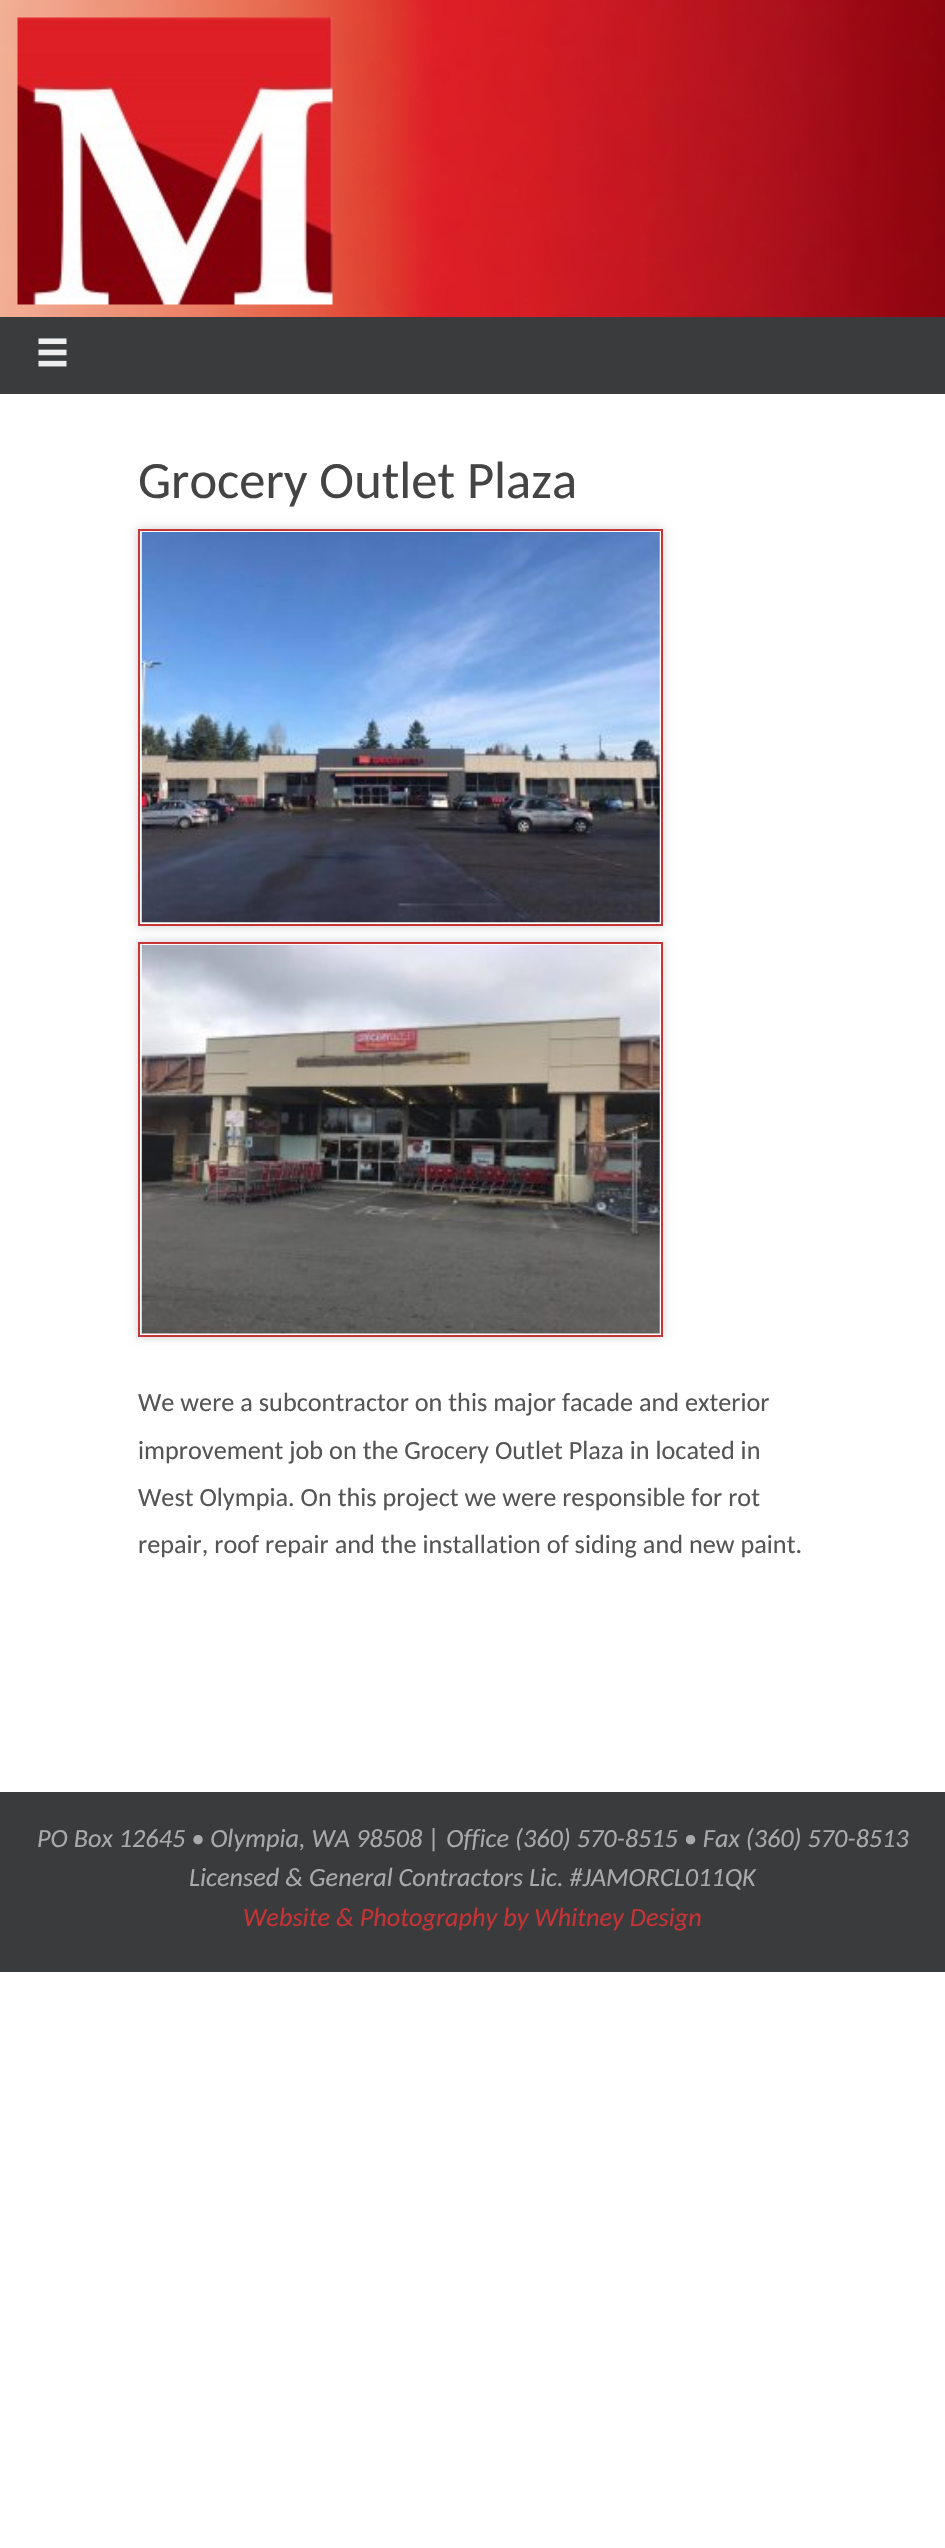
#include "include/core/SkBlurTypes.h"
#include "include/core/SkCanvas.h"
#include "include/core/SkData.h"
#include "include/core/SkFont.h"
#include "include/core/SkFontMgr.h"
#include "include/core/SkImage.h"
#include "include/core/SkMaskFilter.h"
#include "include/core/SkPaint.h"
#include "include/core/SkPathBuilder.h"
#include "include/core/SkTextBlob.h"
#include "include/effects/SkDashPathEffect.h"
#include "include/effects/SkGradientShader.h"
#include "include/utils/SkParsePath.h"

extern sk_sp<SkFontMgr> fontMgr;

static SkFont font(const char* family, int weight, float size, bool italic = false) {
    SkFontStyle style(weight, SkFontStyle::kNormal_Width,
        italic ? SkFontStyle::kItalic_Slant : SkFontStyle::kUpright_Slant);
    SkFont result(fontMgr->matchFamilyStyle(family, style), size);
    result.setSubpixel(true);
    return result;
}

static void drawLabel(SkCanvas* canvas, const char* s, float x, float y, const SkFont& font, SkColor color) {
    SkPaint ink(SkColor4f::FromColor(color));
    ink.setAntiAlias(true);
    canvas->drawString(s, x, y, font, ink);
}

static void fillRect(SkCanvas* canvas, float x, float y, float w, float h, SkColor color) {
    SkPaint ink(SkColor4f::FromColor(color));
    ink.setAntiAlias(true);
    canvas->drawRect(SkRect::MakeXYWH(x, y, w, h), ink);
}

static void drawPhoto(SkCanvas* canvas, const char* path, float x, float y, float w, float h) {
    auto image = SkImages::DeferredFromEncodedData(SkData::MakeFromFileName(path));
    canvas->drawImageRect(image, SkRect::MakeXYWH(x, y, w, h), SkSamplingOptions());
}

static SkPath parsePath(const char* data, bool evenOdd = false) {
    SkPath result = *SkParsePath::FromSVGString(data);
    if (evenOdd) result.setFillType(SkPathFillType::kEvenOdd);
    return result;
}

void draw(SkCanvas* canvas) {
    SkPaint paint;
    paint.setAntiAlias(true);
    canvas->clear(0xFFFFFFFF);
    drawPhoto(canvas, "assets/img1.png", 0, 0, 945, 317);
    drawPhoto(canvas, "assets/img2.png", 17, 17, 316, 288);
    fillRect(canvas, 0, 317, 945, 77, 0xFF3A3B3D);
    drawPhoto(canvas, "assets/img3.png", 38, 338, 29, 29);
    SkFont font1 = font("Carlito", 400, 52.5f);
    drawLabel(canvas, "Grocery Outlet Plaza", 138, 498, font1, 0xFF444444);
    canvas->save();
    canvas->clipPath(parsePath("M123 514H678V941H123ZM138 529H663V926H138Z", true), true);
    paint.setColor(0xFFCDCDCD);
    paint.setMaskFilter(SkMaskFilter::MakeBlur(kNormal_SkBlurStyle, 4.5f));
    canvas->drawRect(SkRect::MakeXYWH(138, 529, 525, 397), paint);
    paint.setMaskFilter(nullptr);
    canvas->restore();
    paint.setStroke(true);
    paint.setStrokeWidth(2);
    paint.setColor(0xFFC83537);
    canvas->drawRect(SkRect::MakeXYWH(139, 530, 523, 395), paint);
    drawPhoto(canvas, "assets/img4.png", 141, 532, 519, 391);
    canvas->save();
    canvas->clipPath(parsePath("M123 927H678V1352H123ZM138 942H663V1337H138Z", true), true);
    paint.setStroke(false);
    paint.setColor(0xFFCDCDCD);
    paint.setMaskFilter(SkMaskFilter::MakeBlur(kNormal_SkBlurStyle, 4.5f));
    canvas->drawRect(SkRect::MakeXYWH(138, 942, 525, 395), paint);
    paint.setMaskFilter(nullptr);
    canvas->restore();
    paint.setStroke(true);
    paint.setColor(0xFFC83537);
    canvas->drawRect(SkRect::MakeXYWH(139, 943, 523, 393), paint);
    drawPhoto(canvas, "assets/img5.png", 141, 945, 519, 389);
    SkFont font2 = font("Carlito", 400, 26.25f);
    drawLabel(canvas, "We were a subcontractor on this major facade and exterior", 138, 1411, font2, 0xFF555555);
    drawLabel(canvas, "improvement job on the Grocery Outlet Plaza in located in", 138, 1459, font2, 0xFF555555);
    drawLabel(canvas, "West Olympia. On this project we were responsible for rot", 138, 1506, font2, 0xFF555555);
    drawLabel(canvas, "repair, roof repair and the installation of siding and new paint.", 138, 1553, font2, 0xFF555555);
    fillRect(canvas, 0, 1792, 945, 180, 0xFF3A3B3D);
    SkFont font3 = font("Carlito", 400, 26.25f, true);
    drawLabel(canvas, "PO Box 12645 • Olympia, WA 98508 | Office (360) 570-8515 • Fax (360) 570-8513", 37, 1847, font3, 0xFFAAAAAA);
    drawLabel(canvas, "Licensed & General Contractors Lic. #JAMORCL011QK", 189, 1886, font3, 0xFFAAAAAA);
    drawLabel(canvas, "Website & Photography by Whitney Design", 243, 1926, font3, 0xFFC73335);
}
